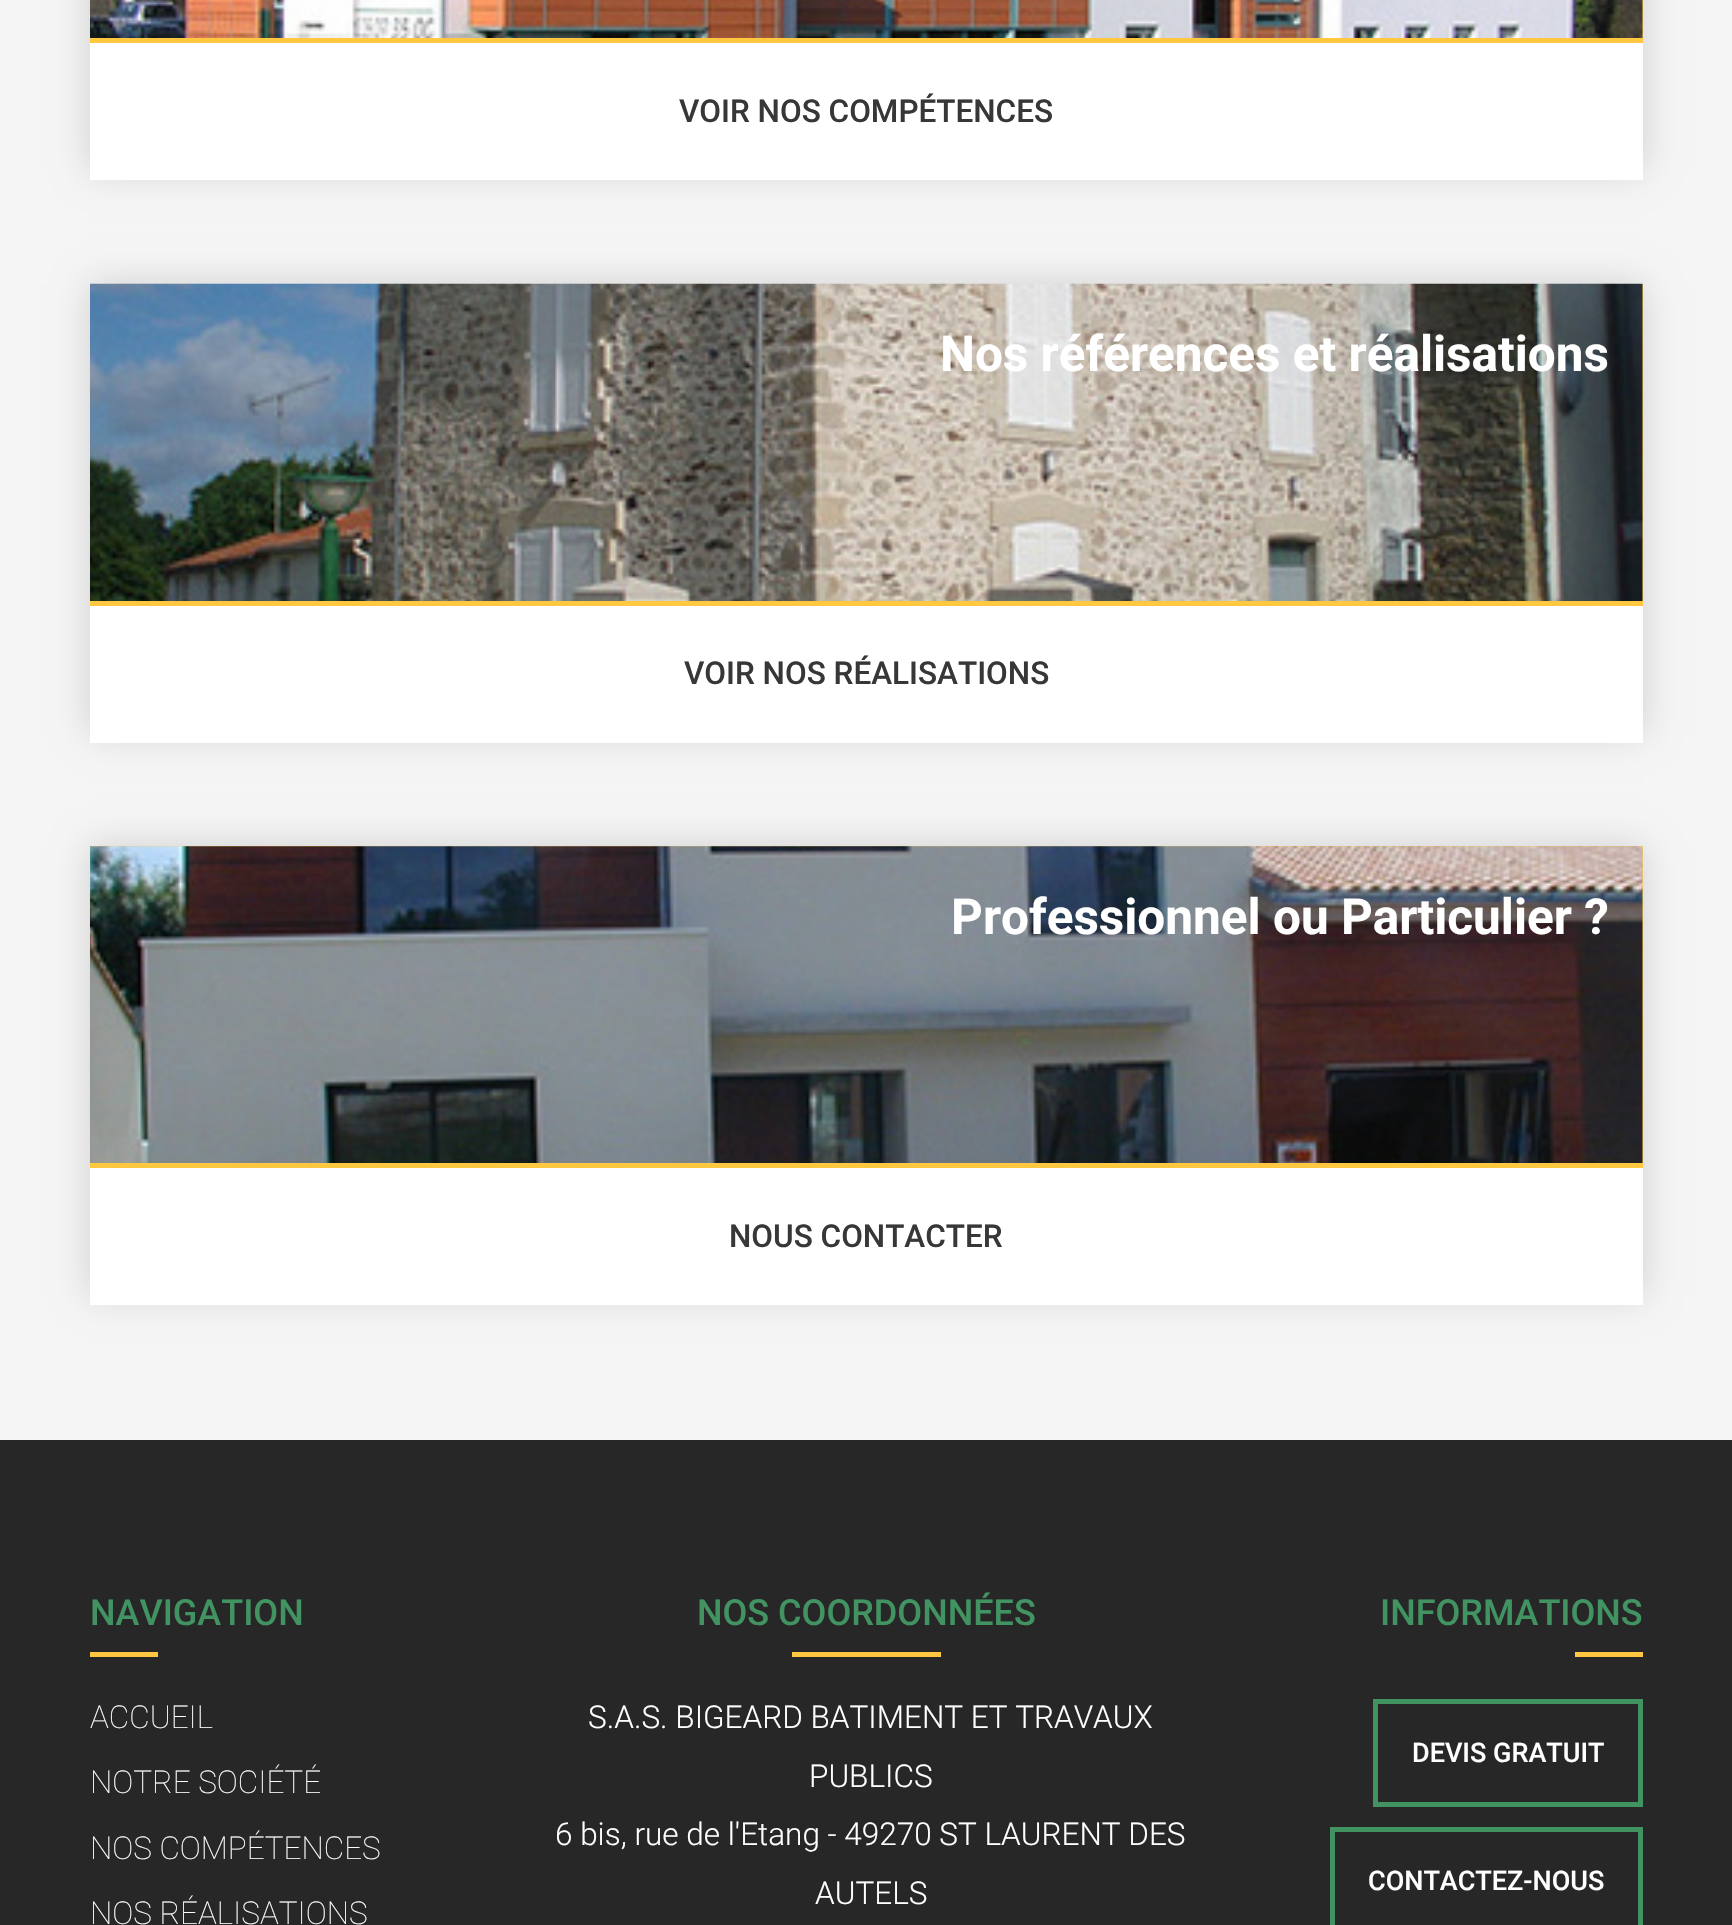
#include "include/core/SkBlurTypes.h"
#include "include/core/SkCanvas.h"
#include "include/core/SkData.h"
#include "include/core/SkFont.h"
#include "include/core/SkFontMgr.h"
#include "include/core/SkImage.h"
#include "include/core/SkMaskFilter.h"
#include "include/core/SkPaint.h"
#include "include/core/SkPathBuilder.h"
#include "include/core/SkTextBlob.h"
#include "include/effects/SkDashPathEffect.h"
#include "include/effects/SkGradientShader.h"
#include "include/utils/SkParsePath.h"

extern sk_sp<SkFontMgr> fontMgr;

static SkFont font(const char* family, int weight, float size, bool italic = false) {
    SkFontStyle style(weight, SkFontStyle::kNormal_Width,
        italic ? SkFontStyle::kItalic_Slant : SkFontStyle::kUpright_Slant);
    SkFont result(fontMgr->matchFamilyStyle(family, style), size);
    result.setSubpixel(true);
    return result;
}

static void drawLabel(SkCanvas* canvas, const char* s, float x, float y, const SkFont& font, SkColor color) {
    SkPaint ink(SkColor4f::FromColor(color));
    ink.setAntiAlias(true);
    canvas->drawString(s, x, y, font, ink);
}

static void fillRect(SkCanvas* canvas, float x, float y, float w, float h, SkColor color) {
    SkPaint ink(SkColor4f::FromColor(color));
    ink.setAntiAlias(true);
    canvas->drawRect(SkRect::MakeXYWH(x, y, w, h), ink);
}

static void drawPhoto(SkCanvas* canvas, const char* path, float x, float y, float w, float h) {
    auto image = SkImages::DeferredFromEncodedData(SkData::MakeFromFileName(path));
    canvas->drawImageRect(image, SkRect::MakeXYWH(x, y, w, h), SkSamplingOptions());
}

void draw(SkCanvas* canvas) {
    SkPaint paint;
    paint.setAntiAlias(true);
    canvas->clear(0xFFF5F5F5);
    paint.setColor(0xFFCFCFCF);
    paint.setMaskFilter(SkMaskFilter::MakeBlur(kNormal_SkBlurStyle, 17));
    canvas->drawRect(SkRect::MakeXYWH(90, -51, 1553, 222), paint);
    paint.setMaskFilter(nullptr);
    fillRect(canvas, 1642, 0, 1, 38, 0xFFFFC840);
    drawPhoto(canvas, "assets/img1.png", 90, 0, 1553, 38);
    fillRect(canvas, 90, 38, 1553, 5, 0xFFFFC840);
    fillRect(canvas, 90, 43, 1553, 137, 0xFFFFFFFF);
    SkFont font1 = font("Roboto", 500, 31.5f);
    drawLabel(canvas, "VOIR NOS COMPÉTENCES", 679, 122, font1, 0xFF373737);
    paint.setMaskFilter(SkMaskFilter::MakeBlur(kNormal_SkBlurStyle, 17));
    canvas->drawRect(SkRect::MakeXYWH(90, 284, 1553, 450), paint);
    paint.setMaskFilter(nullptr);
    fillRect(canvas, 1642, 284, 1, 317, 0xFFFFC840);
    drawPhoto(canvas, "assets/img2.png", 90, 283, 1553, 318);
    fillRect(canvas, 90, 601, 1553, 5, 0xFFFFC840);
    SkFont font2 = font("Roboto", 700, 49.5f);
    drawLabel(canvas, "Nos références et réalisations", 940, 371, font2, 0xFFFFFFFF);
    fillRect(canvas, 90, 606, 1553, 137, 0xFFFFFFFF);
    drawLabel(canvas, "VOIR NOS RÉALISATIONS", 684, 684, font1, 0xFF373737);
    paint.setMaskFilter(SkMaskFilter::MakeBlur(kNormal_SkBlurStyle, 17));
    canvas->drawRect(SkRect::MakeXYWH(90, 846, 1553, 450), paint);
    paint.setMaskFilter(nullptr);
    fillRect(canvas, 90, 846, 1553, 322, 0xFFFFC840);
    drawPhoto(canvas, "assets/img3.png", 90, 846, 1553, 317);
    drawLabel(canvas, "Professionnel ou Particulier ?", 951, 934, font2, 0xFFFFFFFF);
    fillRect(canvas, 90, 1168, 1553, 137, 0xFFFFFFFF);
    drawLabel(canvas, "NOUS CONTACTER", 729, 1247, font1, 0xFF373737);
    fillRect(canvas, 0, 1440, 1732, 485, 0xFF272727);
    SkFont font3 = font("Roboto", 500, 36);
    drawLabel(canvas, "NAVIGATION", 90, 1625, font3, 0xFF419362);
    fillRect(canvas, 90, 1652, 68, 5, 0xFFFFC840);
    SkFont font4 = font("Roboto", 100, 31.5f);
    drawLabel(canvas, "ACCUEIL", 90, 1728, font4, 0xFFFFFFFF);
    drawLabel(canvas, "NOTRE SOCIÉTÉ", 90, 1793, font4, 0xFFFFFFFF);
    drawLabel(canvas, "NOS COMPÉTENCES", 90, 1859, font4, 0xFFFFFFFF);
    drawLabel(canvas, "NOS RÉALISATIONS", 90, 1924, font4, 0xFFFFFFFF);
    drawLabel(canvas, "NOS COORDONNÉES", 697, 1625, font3, 0xFF419362);
    fillRect(canvas, 792, 1652, 149, 5, 0xFFFFC840);
    SkFont font5 = font("Roboto", 300, 31.5f);
    drawLabel(canvas, "S.A.S. BIGEARD BATIMENT ET TRAVAUX", 588, 1728, font5, 0xFFFFFFFF);
    drawLabel(canvas, "PUBLICS", 809, 1787, font5, 0xFFFFFFFF);
    drawLabel(canvas, "6 bis, rue de l'Etang - 49270 ST LAURENT DES", 555, 1845, font5, 0xFFFFFFFF);
    drawLabel(canvas, "AUTELS", 815, 1904, font5, 0xFFFFFFFF);
    drawLabel(canvas, "INFORMATIONS", 1380, 1625, font3, 0xFF419362);
    fillRect(canvas, 1575, 1652, 68, 5, 0xFFFFC840);
    paint.setStroke(true);
    paint.setStrokeWidth(5);
    paint.setColor(0xFF419362);
    canvas->drawRect(SkRect::MakeXYWH(1375.5f, 1701.5f, 265, 103), paint);
    SkFont font6 = font("Roboto", 500, 27);
    drawLabel(canvas, "DEVIS GRATUIT", 1412, 1762, font6, 0xFFFFFFFF);
    canvas->drawRect(SkRect::MakeXYWH(1332.5f, 1829.5f, 308, 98), paint);
    drawLabel(canvas, "CONTACTEZ-NOUS", 1368, 1890, font6, 0xFFFFFFFF);
}
